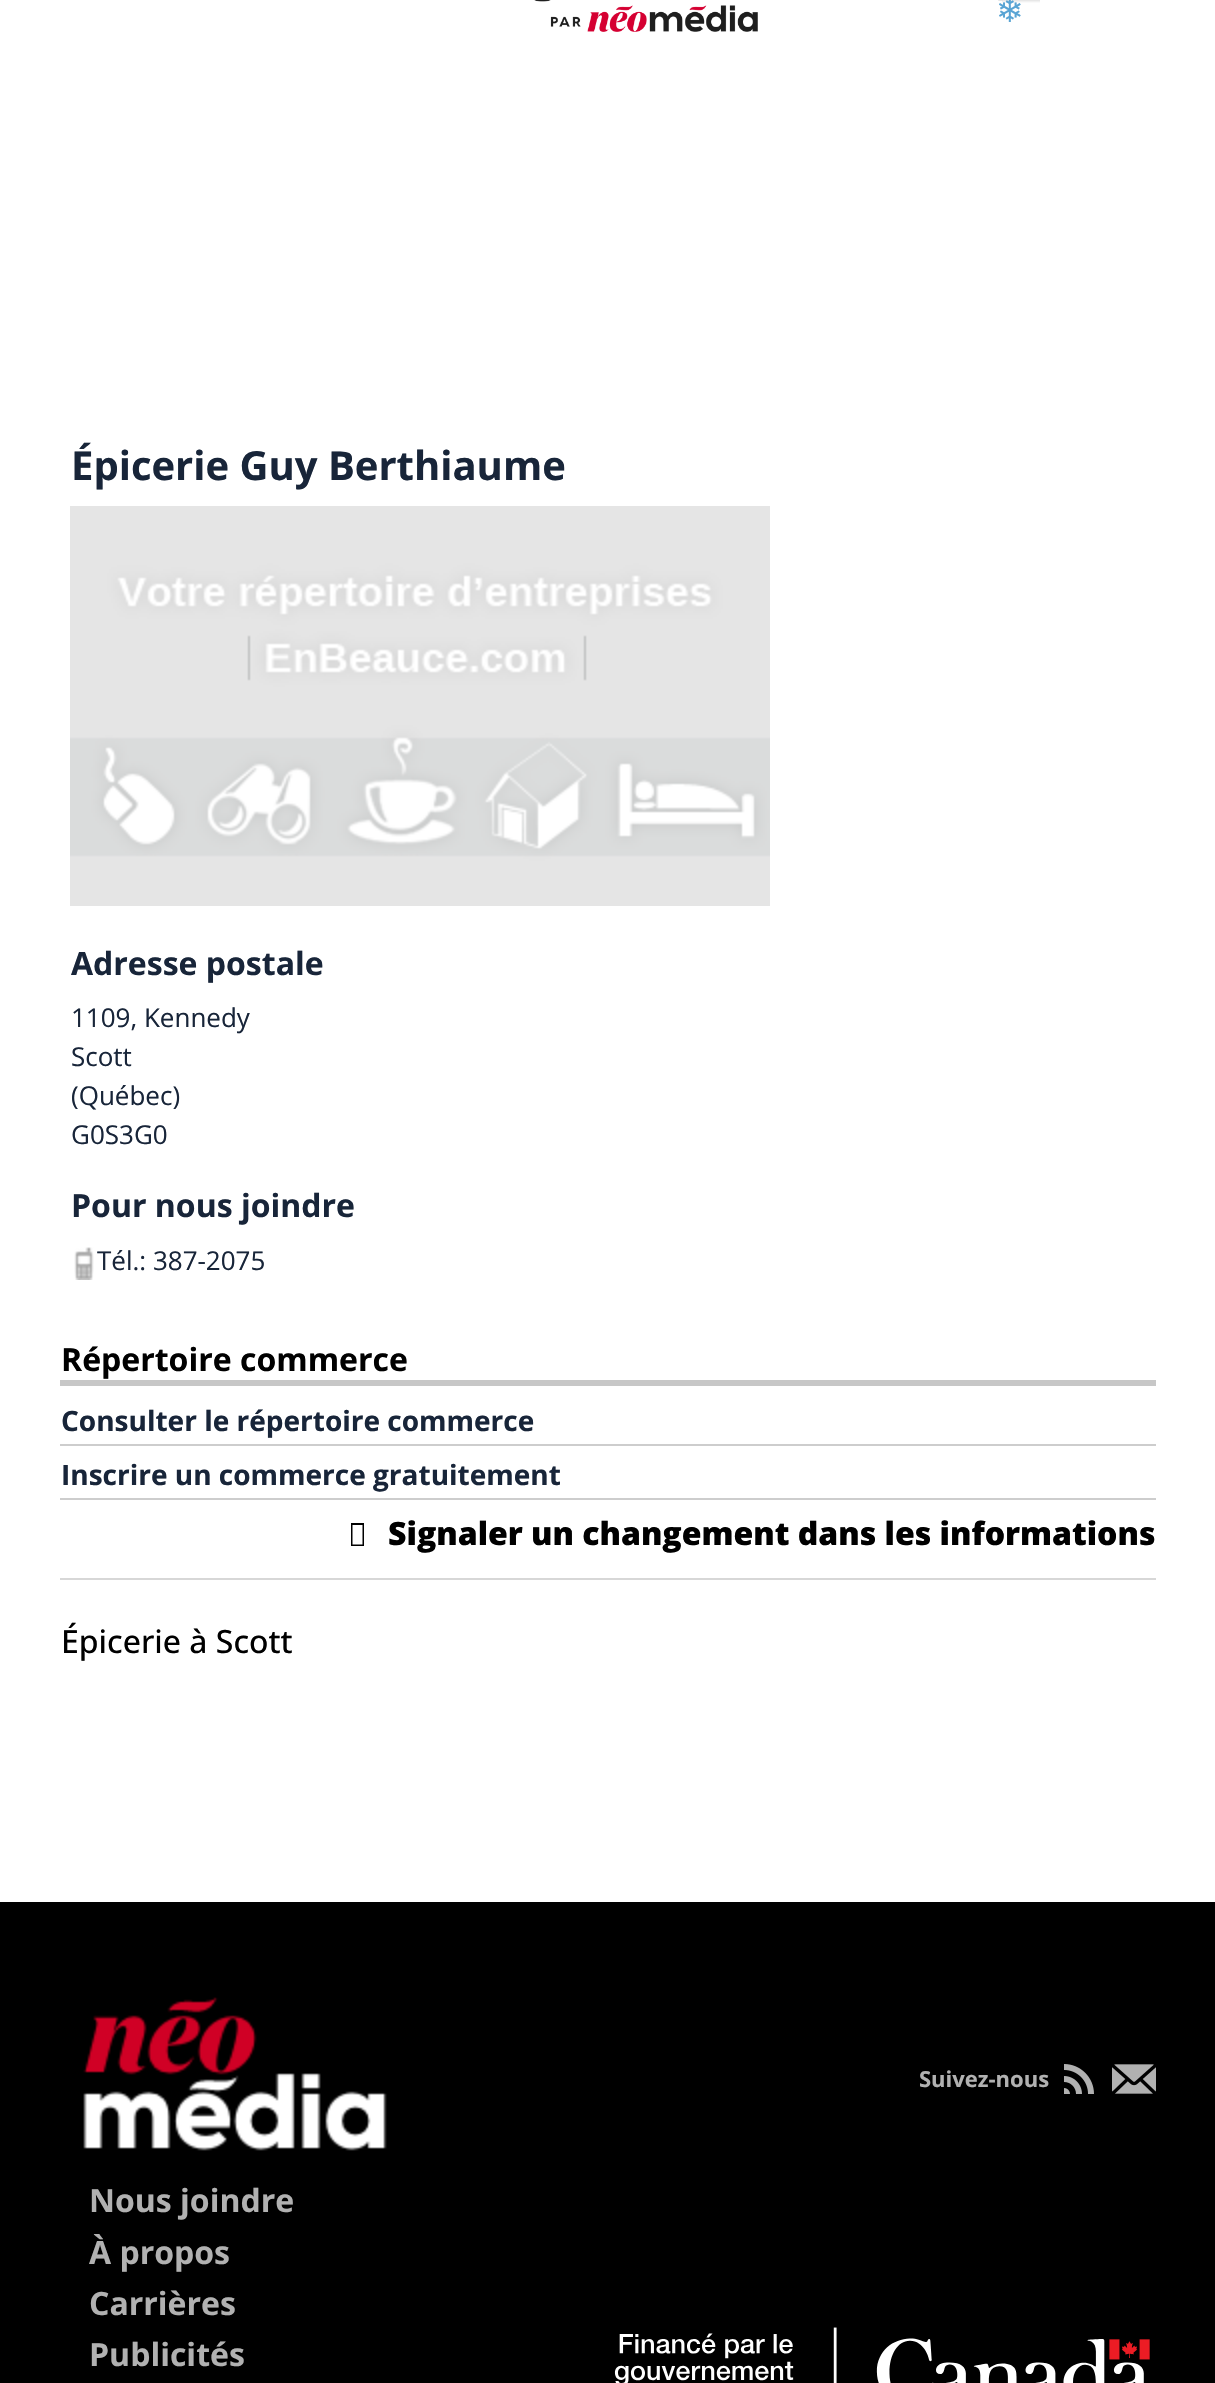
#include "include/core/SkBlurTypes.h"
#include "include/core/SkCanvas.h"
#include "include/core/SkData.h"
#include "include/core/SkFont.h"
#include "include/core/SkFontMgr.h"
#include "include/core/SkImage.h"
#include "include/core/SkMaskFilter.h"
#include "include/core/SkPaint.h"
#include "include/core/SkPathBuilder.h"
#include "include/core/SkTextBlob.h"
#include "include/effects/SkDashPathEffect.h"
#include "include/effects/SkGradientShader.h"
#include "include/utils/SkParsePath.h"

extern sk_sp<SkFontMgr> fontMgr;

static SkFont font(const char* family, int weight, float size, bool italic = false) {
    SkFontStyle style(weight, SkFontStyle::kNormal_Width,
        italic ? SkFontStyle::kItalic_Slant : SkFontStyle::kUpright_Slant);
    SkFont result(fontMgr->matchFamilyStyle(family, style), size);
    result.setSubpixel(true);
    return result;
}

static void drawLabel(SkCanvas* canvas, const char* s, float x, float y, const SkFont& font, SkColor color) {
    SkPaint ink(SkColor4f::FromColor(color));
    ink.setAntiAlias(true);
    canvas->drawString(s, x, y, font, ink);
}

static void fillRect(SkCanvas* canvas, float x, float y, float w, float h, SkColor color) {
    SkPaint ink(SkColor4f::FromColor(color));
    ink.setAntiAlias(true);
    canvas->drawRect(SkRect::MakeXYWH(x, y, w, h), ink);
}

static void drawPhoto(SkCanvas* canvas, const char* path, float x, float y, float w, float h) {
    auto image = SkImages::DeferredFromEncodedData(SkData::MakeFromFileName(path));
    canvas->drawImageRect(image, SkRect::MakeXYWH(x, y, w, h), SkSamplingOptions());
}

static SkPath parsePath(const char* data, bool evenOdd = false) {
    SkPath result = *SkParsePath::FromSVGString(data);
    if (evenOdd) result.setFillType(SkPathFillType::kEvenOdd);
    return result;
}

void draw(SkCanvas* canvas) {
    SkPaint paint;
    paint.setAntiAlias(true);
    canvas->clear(0xFFFFFFFF);
    drawPhoto(canvas, "assets/img1.png", 534, 0, 224, 32);
    paint.setColor(0xFF999999);
    canvas->drawPath(parsePath("M1043-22H1042C1042.5-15.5 1039.5-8.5 1033.5-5C1039.5 4 1056 .5 1056-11C1056-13 1055.5-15.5 1054-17C1052-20 1048.5-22 1045-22ZM999-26C994.5-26 990.5-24 988-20.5C983.5-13.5 986.5-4 994-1C999.5 1.5 1009 0 1013-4.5C1005.5-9 1002-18 1005-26H1003Z"), paint);
    {
        const SkColor colors[] = {0xFFD3D3D3, 0xFFD3D3D3, 0x00D3D3D3, 0x00000000, 0x00000000};
        const float stops[] = {0, 0.38f, 0.5f, 0.62f, 1};
        const SkPoint ends[] = {{1021, -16}, {1021, 22}};
        paint.setShader(SkGradientShader::MakeLinear(ends, colors, stops, 5, SkTileMode::kClamp));
        paint.setAlpha(255);
    }
    canvas->drawRect(SkRect::MakeXYWH(1002, 0, 38, 3), paint);
    SkFont font1 = font("DejaVu Sans", 400, 33);
    drawLabel(canvas, "❄", 996, 22, font1, 0xFF59A4D4);
    SkFont font2 = font("Open Sans", 700, 40);
    drawLabel(canvas, "Épicerie Guy Berthiaume", 71, 480, font2, 0xFF182539);
    drawPhoto(canvas, "assets/img2.png", 70, 506, 700, 400);
    SkFont font3 = font("Open Sans", 700, 32);
    drawLabel(canvas, "Adresse postale", 71, 975, font3, 0xFF182539);
    SkFont font4 = font("Open Sans", 400, 26);
    drawLabel(canvas, "1109, Kennedy", 71, 1027, font4, 0xFF182539);
    drawLabel(canvas, "Scott", 71, 1066, font4, 0xFF182539);
    drawLabel(canvas, "(Québec)", 71, 1105, font4, 0xFF182539);
    drawLabel(canvas, "G0S3G0", 71, 1144, font4, 0xFF182539);
    drawLabel(canvas, "Pour nous joindre", 71, 1217, font3, 0xFF182539);
    drawPhoto(canvas, "assets/img3.png", 74, 1247, 20, 33);
    drawLabel(canvas, "Tél.: 387-2075", 97, 1270, font4, 0xFF182539);
    fillRect(canvas, 60, 1380, 1096, 6, 0xFFC7C7C7);
    drawLabel(canvas, "Répertoire commerce", 61, 1371, font3, 0xFF000000);
    fillRect(canvas, 60, 1444, 1096, 2, 0xFFCDCDCD);
    SkFont font5 = font("Open Sans", 700, 28);
    drawLabel(canvas, "Consulter le répertoire commerce", 61, 1431, font5, 0xFF182539);
    fillRect(canvas, 60, 1498, 1096, 2, 0xFFCDCDCD);
    drawLabel(canvas, "Inscrire un commerce gratuitement", 61, 1485, font5, 0xFF182539);
    fillRect(canvas, 60, 1578, 1096, 2, 0xFFD7D7D7);
    paint.setShader(nullptr);
    paint.setColor(0xFF000000);
    canvas->drawPath(parsePath("M351 1546V1523H364V1546ZM352.5 1544.5H362.5V1525H352.5Z"), paint);
    SkFont font6 = font("Open Sans", 800, 32);
    drawLabel(canvas, "Signaler un changement dans les informations", 388, 1545, font6, 0xFF000000);
    SkFont font7 = font("Open Sans", 500, 32);
    drawLabel(canvas, "Épicerie à Scott", 61, 1653, font7, 0xFF000000);
    fillRect(canvas, 0, 1902, 1215, 481, 0xFF000000);
    SkFont font8 = font("Open Sans", 700, 22);
    drawLabel(canvas, "Suivez-nous", 919, 2087, font8, 0xFFB1B1B1);
    drawPhoto(canvas, "assets/img4.png", 1064, 2064, 30, 30);
    drawPhoto(canvas, "assets/img5.png", 1112, 2064, 44, 30);
    drawPhoto(canvas, "assets/img6.png", 614, 2327, 536, 56);
    drawPhoto(canvas, "assets/img7.png", 83, 1997, 304, 154);
    drawLabel(canvas, "Nous joindre", 89, 2212, font3, 0xFFB1B1B1);
    drawLabel(canvas, "À propos", 89, 2264, font3, 0xFFB1B1B1);
    drawLabel(canvas, "Carrières", 89, 2315, font3, 0xFFB1B1B1);
    drawLabel(canvas, "Publicités", 89, 2366, font3, 0xFFB1B1B1);
}
